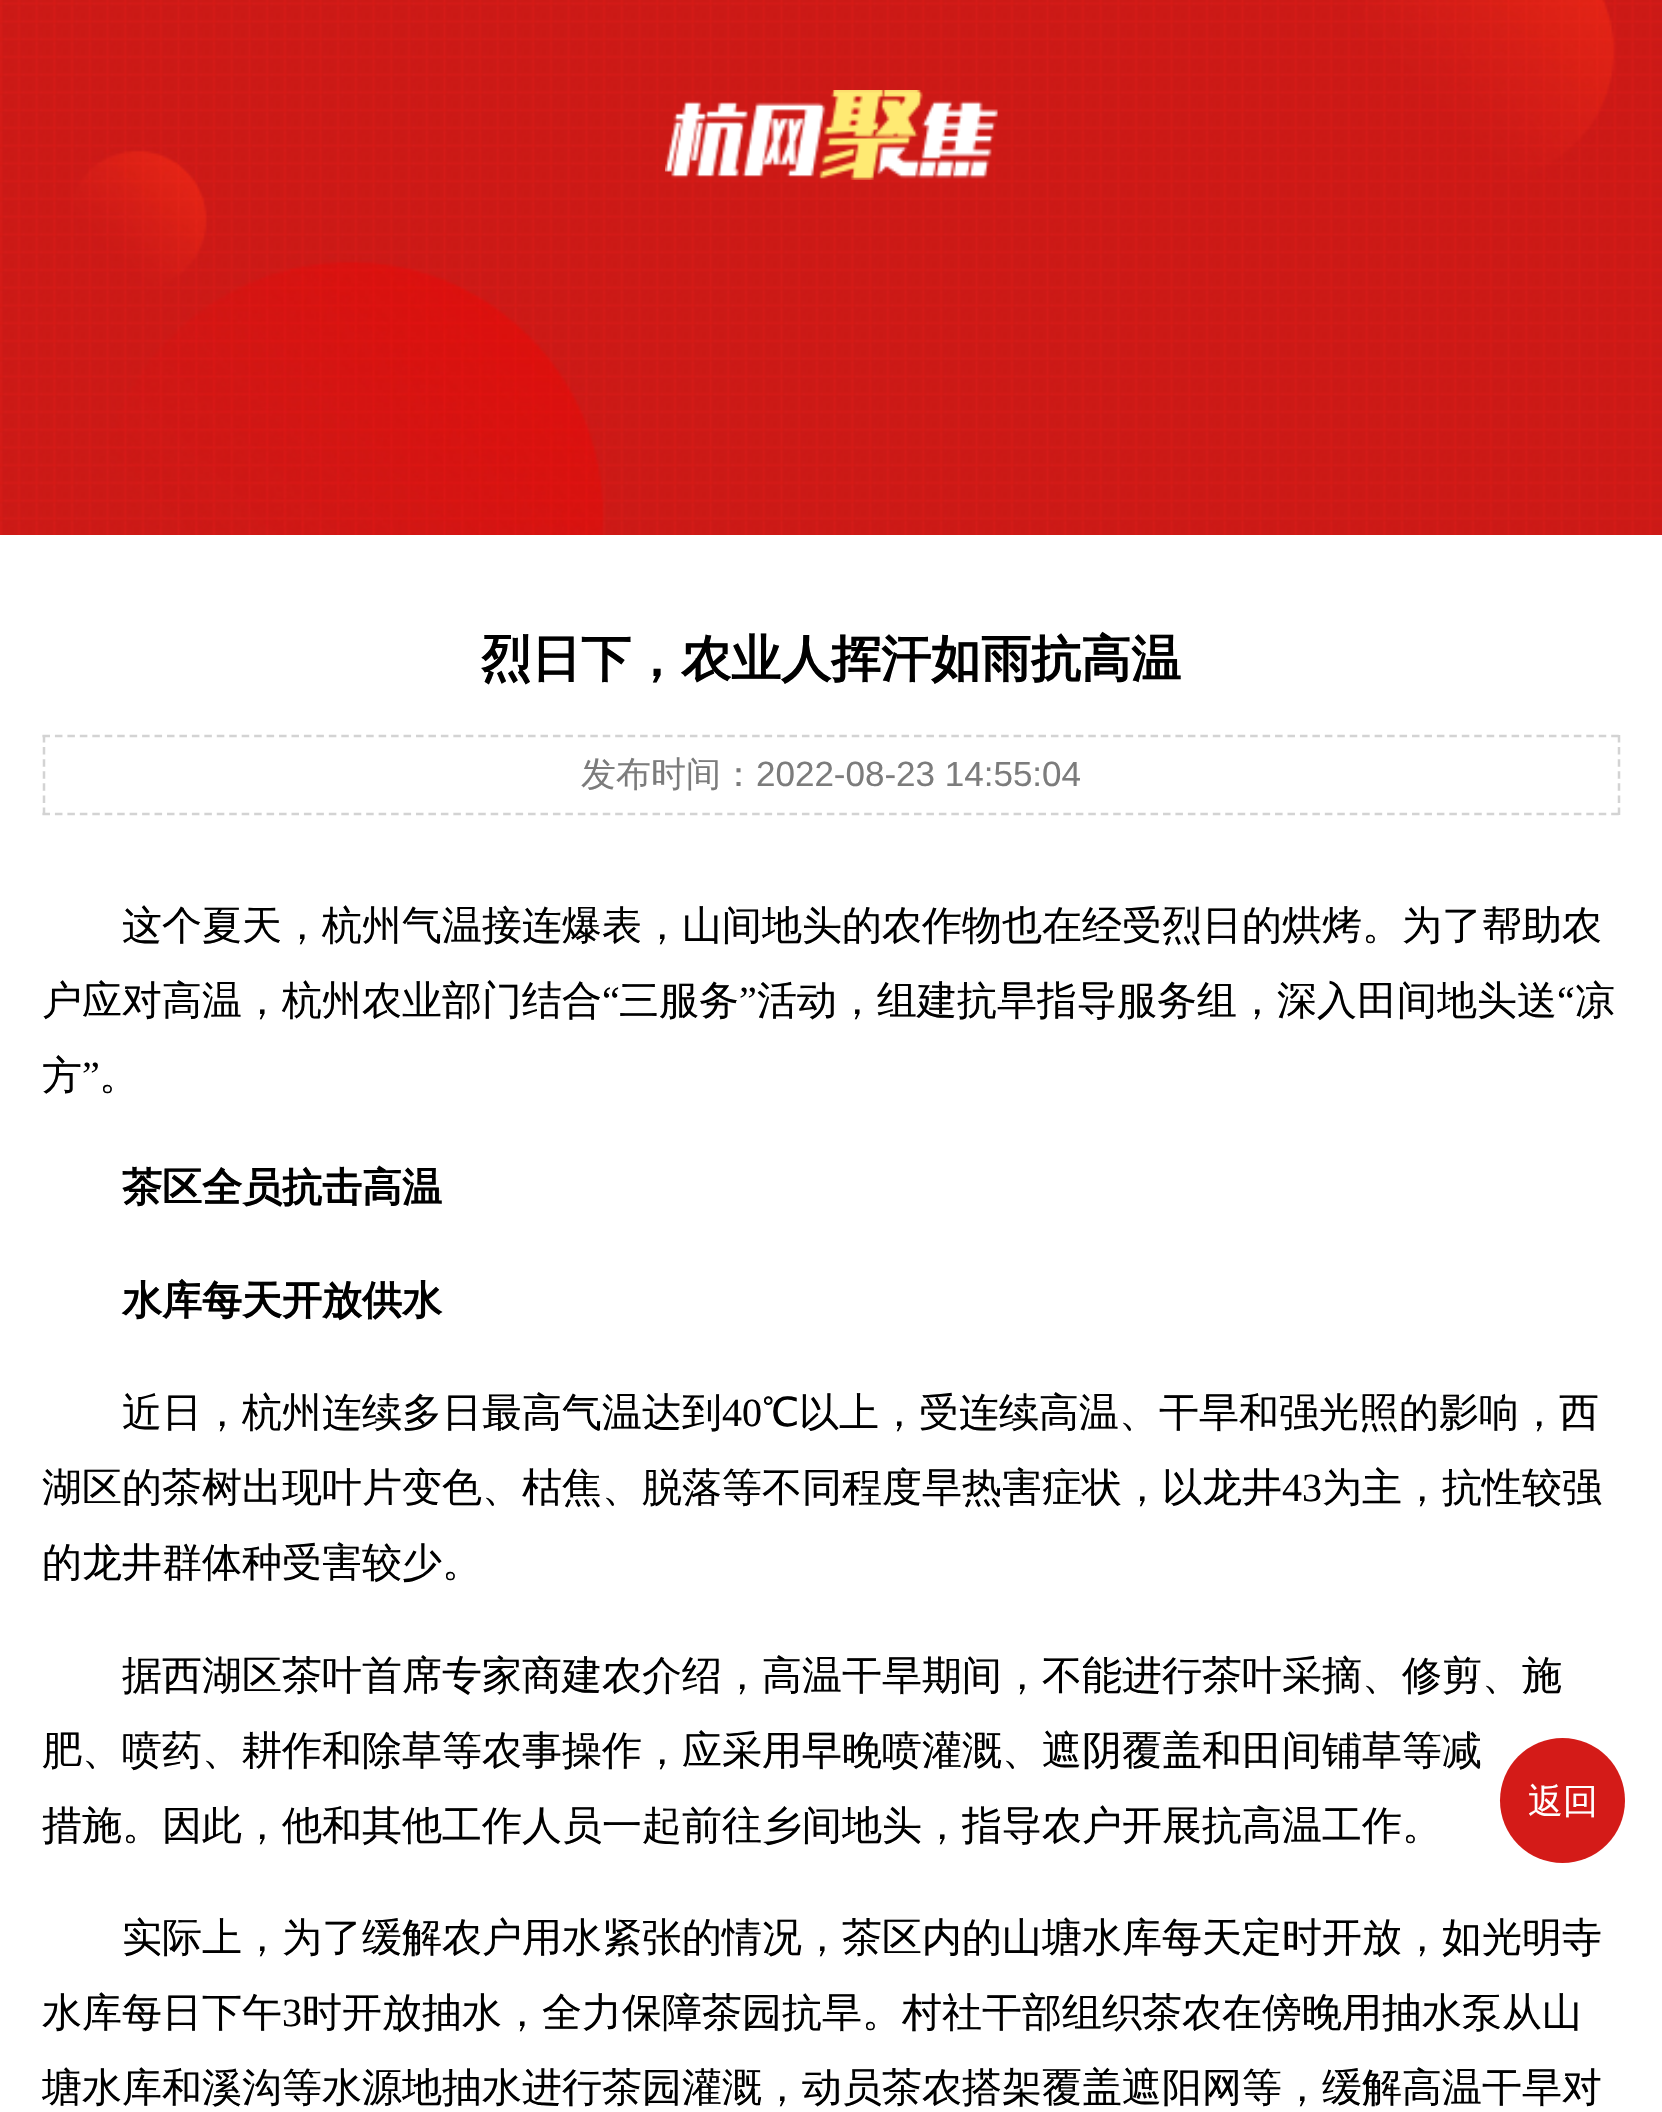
#include "include/core/SkBlurTypes.h"
#include "include/core/SkCanvas.h"
#include "include/core/SkData.h"
#include "include/core/SkFont.h"
#include "include/core/SkFontMgr.h"
#include "include/core/SkImage.h"
#include "include/core/SkMaskFilter.h"
#include "include/core/SkPaint.h"
#include "include/core/SkPathBuilder.h"
#include "include/core/SkTextBlob.h"
#include "include/effects/SkDashPathEffect.h"
#include "include/effects/SkGradientShader.h"
#include "include/utils/SkParsePath.h"

extern sk_sp<SkFontMgr> fontMgr;

static SkFont font(const char* family, int weight, float size, bool italic = false) {
    SkFontStyle style(weight, SkFontStyle::kNormal_Width,
        italic ? SkFontStyle::kItalic_Slant : SkFontStyle::kUpright_Slant);
    SkFont result(fontMgr->matchFamilyStyle(family, style), size);
    result.setSubpixel(true);
    return result;
}

static void drawLabel(SkCanvas* canvas, const char* s, float x, float y, const SkFont& font, SkColor color) {
    SkPaint ink(SkColor4f::FromColor(color));
    ink.setAntiAlias(true);
    canvas->drawString(s, x, y, font, ink);
}

static void drawPhoto(SkCanvas* canvas, const char* path, float x, float y, float w, float h) {
    auto image = SkImages::DeferredFromEncodedData(SkData::MakeFromFileName(path));
    canvas->drawImageRect(image, SkRect::MakeXYWH(x, y, w, h), SkSamplingOptions());
}

static SkPath parsePath(const char* data, bool evenOdd = false) {
    SkPath result = *SkParsePath::FromSVGString(data);
    if (evenOdd) result.setFillType(SkPathFillType::kEvenOdd);
    return result;
}

void draw(SkCanvas* canvas) {
    SkPaint paint;
    paint.setAntiAlias(true);
    canvas->clear(0xFFFFFFFF);
    drawPhoto(canvas, "assets/img1.png", 0, 0, 1662, 535);
    drawPhoto(canvas, "assets/img2.png", 665, 90, 333, 90);
    SkFont font1 = font("WenQuanYi Zen Hei", 700, 50);
    drawLabel(canvas, "烈日下，农业人挥汗如雨抗高温", 481, 676, font1, 0xFF000000);
    paint.setStroke(true);
    paint.setStrokeWidth(2.5f);
    paint.setColor(0xFFD3D3D3);
    paint.setPathEffect(SkDashPathEffect::Make({{7.5f, 4.95f}}, 0));
    canvas->drawPath(parsePath("M42.5 736H1620"), paint);
    paint.setPathEffect(nullptr);
    paint.setPathEffect(SkDashPathEffect::Make({{7.5f, 4.58f}}, 0));
    canvas->drawPath(parsePath("M1619 735V815"), paint);
    paint.setPathEffect(nullptr);
    paint.setPathEffect(SkDashPathEffect::Make({{7.5f, 4.95f}}, 0));
    canvas->drawPath(parsePath("M42.5 814H1620"), paint);
    paint.setPathEffect(nullptr);
    paint.setPathEffect(SkDashPathEffect::Make({{7.5f, 4.58f}}, 0));
    canvas->drawPath(parsePath("M44 735V815"), paint);
    paint.setPathEffect(nullptr);
    SkFont font2 = font("WenQuanYi Zen Hei", 500, 35);
    drawLabel(canvas, "发布时间：", 581, 786, font2, 0xFF7C7C7C);
    SkFont font3 = font("Liberation Sans", 400, 35);
    drawLabel(canvas, "2022-08-23 14:55:04", 756, 786, font3, 0xFF7C7C7C);
    SkFont font4 = font("WenQuanYi Zen Hei", 500, 40);
    drawLabel(canvas, "这个夏天，杭州气温接连爆表，山间地头的农作物也在经受烈日的烘烤。为了帮助农", 122, 939, font4, 0xFF000000);
    drawLabel(canvas, "户应对高温，杭州农业部门结合", 42, 1014, font4, 0xFF000000);
    SkFont font5 = font("Liberation Serif", 400, 40);
    drawLabel(canvas, "“", 602, 1014, font5, 0xFF000000);
    drawLabel(canvas, "三服务", 619, 1014, font4, 0xFF000000);
    drawLabel(canvas, "”", 739, 1014, font5, 0xFF000000);
    drawLabel(canvas, "活动，组建抗旱指导服务组，深入田间地头送", 757, 1014, font4, 0xFF000000);
    drawLabel(canvas, "“", 1557, 1014, font5, 0xFF000000);
    drawLabel(canvas, "凉", 1575, 1014, font4, 0xFF000000);
    drawLabel(canvas, "方", 42, 1089, font4, 0xFF000000);
    drawLabel(canvas, "”", 82, 1089, font5, 0xFF000000);
    drawLabel(canvas, "。", 99, 1089, font4, 0xFF000000);
    SkFont font6 = font("WenQuanYi Zen Hei", 700, 40);
    drawLabel(canvas, "茶区全员抗击高温", 122, 1201, font6, 0xFF000000);
    drawLabel(canvas, "水库每天开放供水", 122, 1314, font6, 0xFF000000);
    drawLabel(canvas, "近日，杭州连续多日最高气温达到", 122, 1426, font4, 0xFF000000);
    drawLabel(canvas, "40", 722, 1426, font5, 0xFF000000);
    drawLabel(canvas, "℃以上，受连续高温、干旱和强光照的影响，西", 762, 1426, font4, 0xFF000000);
    drawLabel(canvas, "湖区的茶树出现叶片变色、枯焦、脱落等不同程度旱热害症状，以龙井", 42, 1501, font4, 0xFF000000);
    drawLabel(canvas, "43", 1282, 1501, font5, 0xFF000000);
    drawLabel(canvas, "为主，抗性较强", 1322, 1501, font4, 0xFF000000);
    drawLabel(canvas, "的龙井群体种受害较少。", 42, 1576, font4, 0xFF000000);
    drawLabel(canvas, "据西湖区茶叶首席专家商建农介绍，高温干旱期间，不能进行茶叶采摘、修剪、施", 122, 1689, font4, 0xFF000000);
    drawLabel(canvas, "肥、喷药、耕作和除草等农事操作，应采用早晚喷灌溉、遮阴覆盖和田间铺草等减", 42, 1764, font4, 0xFF000000);
    drawLabel(canvas, "措施。因此，他和其他工作人员一起前往乡间地头，指导农户开展抗高温工作。", 42, 1839, font4, 0xFF000000);
    drawLabel(canvas, "实际上，为了缓解农户用水紧张的情况，茶区内的山塘水库每天定时开放，如光明寺", 122, 1951, font4, 0xFF000000);
    drawLabel(canvas, "水库每日下午", 42, 2026, font4, 0xFF000000);
    drawLabel(canvas, "3", 282, 2026, font5, 0xFF000000);
    drawLabel(canvas, "时开放抽水，全力保障茶园抗旱。村社干部组织茶农在傍晚用抽水泵从山", 302, 2026, font4, 0xFF000000);
    drawLabel(canvas, "塘水库和溪沟等水源地抽水进行茶园灌溉，动员茶农搭架覆盖遮阳网等，缓解高温干旱对", 42, 2101, font4, 0xFF000000);
    paint.setStroke(false);
    paint.setColor(0xFFFFFFFF);
    paint.setMaskFilter(SkMaskFilter::MakeBlur(kNormal_SkBlurStyle, 19));
    canvas->drawRoundRect(SkRect::MakeXYWH(1500, 1738, 125, 125), 62.5f, 62.5f, paint);
    paint.setMaskFilter(nullptr);
    paint.setColor(0xFFD41B18);
    canvas->drawCircle(1562.5f, 1800.5f, 62.5f, paint);
    drawLabel(canvas, "返回", 1528, 1813, font2, 0xFFFFFFFF);
}
